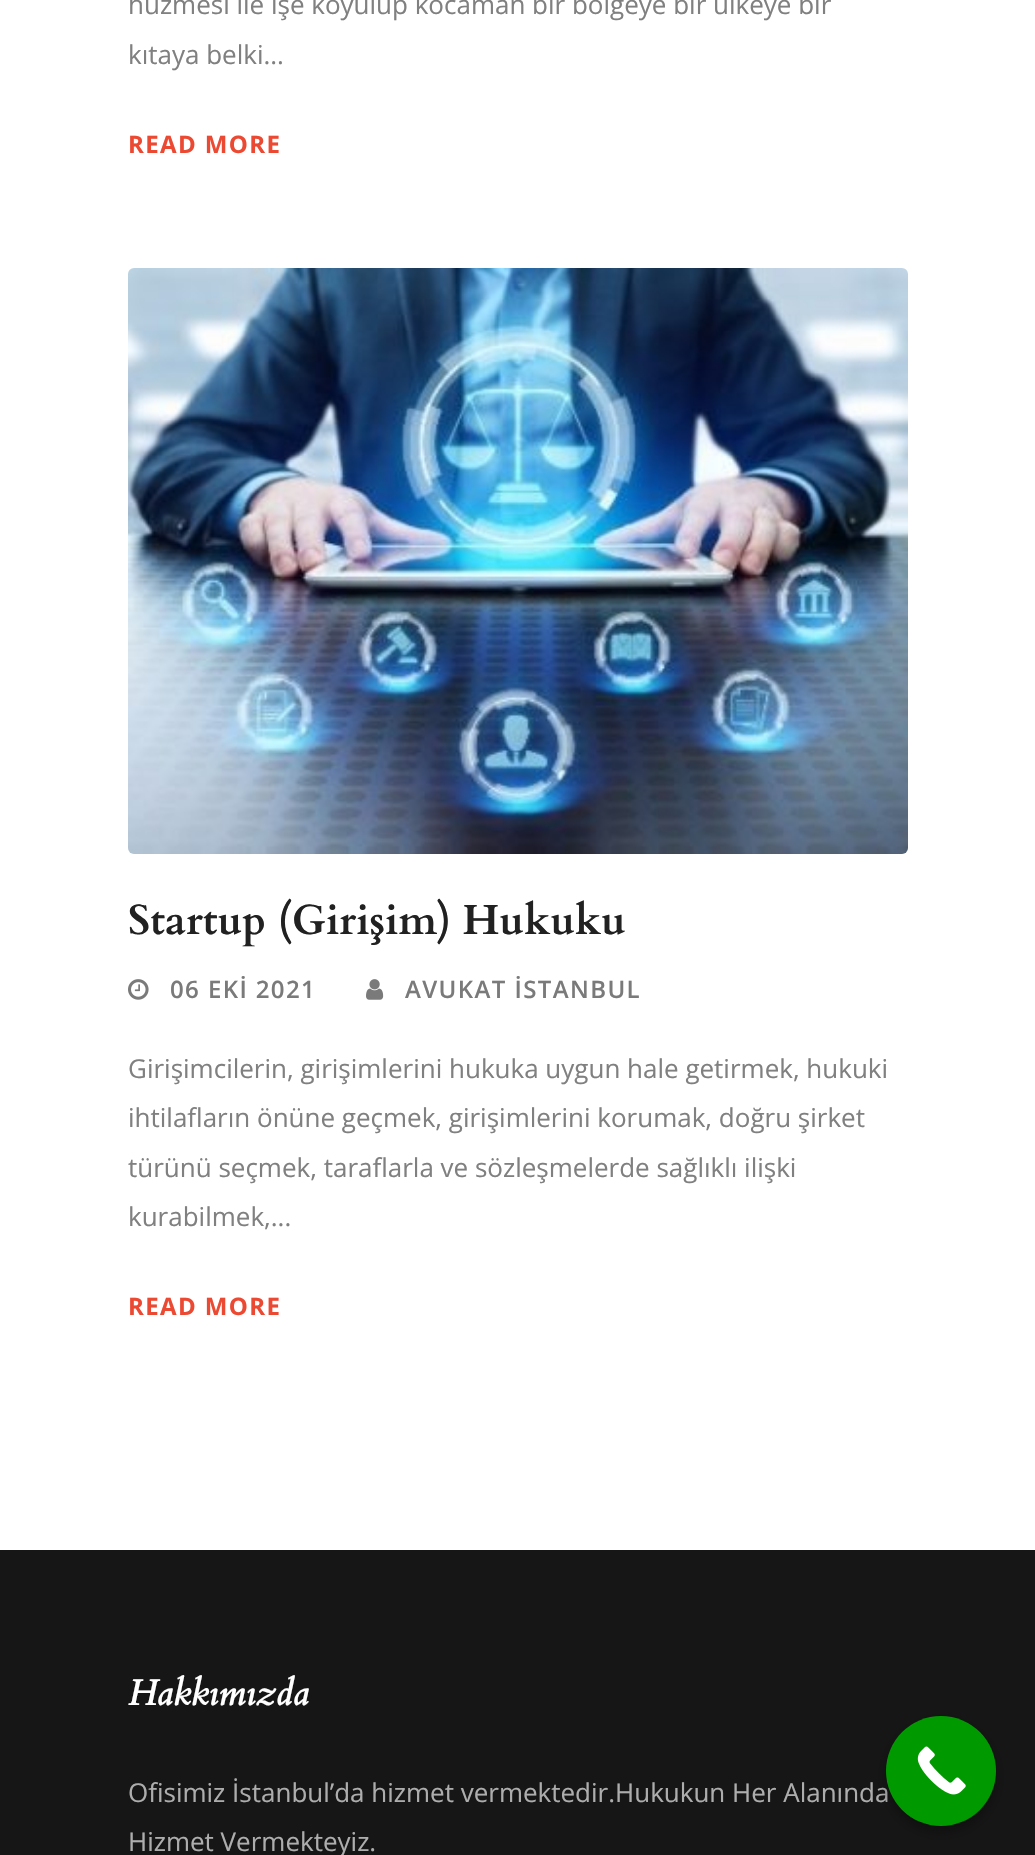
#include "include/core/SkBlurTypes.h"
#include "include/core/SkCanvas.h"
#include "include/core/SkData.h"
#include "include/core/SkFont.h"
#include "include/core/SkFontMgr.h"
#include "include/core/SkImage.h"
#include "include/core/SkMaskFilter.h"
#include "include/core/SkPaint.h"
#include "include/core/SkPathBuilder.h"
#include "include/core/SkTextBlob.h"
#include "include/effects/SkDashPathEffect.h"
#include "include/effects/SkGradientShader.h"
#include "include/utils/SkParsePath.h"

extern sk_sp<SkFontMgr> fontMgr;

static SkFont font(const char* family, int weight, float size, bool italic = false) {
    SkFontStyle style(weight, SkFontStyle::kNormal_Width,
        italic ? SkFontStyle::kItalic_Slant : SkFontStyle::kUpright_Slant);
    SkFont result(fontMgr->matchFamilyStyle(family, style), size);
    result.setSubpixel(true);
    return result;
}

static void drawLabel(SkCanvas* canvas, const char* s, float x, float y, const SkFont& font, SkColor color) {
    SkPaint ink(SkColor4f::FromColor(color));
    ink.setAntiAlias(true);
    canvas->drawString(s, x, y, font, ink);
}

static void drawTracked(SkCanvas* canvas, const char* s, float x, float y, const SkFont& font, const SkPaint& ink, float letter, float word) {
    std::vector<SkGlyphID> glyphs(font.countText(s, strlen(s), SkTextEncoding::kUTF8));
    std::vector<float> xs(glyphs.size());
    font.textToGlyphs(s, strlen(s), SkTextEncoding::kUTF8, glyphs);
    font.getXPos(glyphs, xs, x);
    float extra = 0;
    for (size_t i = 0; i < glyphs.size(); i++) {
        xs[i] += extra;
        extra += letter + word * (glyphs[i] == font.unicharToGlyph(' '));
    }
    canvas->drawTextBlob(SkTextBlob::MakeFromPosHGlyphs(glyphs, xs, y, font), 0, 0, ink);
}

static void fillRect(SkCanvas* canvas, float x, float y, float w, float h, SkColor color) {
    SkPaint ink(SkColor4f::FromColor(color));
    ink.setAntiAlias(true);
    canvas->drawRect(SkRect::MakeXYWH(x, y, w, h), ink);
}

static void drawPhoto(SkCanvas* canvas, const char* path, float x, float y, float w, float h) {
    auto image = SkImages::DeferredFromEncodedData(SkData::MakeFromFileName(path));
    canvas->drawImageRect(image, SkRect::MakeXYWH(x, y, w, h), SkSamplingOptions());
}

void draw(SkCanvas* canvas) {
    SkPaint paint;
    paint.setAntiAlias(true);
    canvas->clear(0xFFFFFFFF);
    SkFont font1 = font("Open Sans", 400, 26);
    drawLabel(canvas, "hüzmesi ile işe koyulup kocaman bir bölgeye bir ülkeye bir", 128, 14, font1, 0xFF808080);
    drawLabel(canvas, "kıtaya belki...", 128, 64, font1, 0xFF808080);
    SkFont font2 = font("Open Sans", 700, 24);
    paint.setColor(0xFFEC4933);
    drawTracked(canvas, "READ MORE", 128, 153, font2, paint, 1.4f, 0);
    drawPhoto(canvas, "assets/img1.png", 128, 268, 780, 586);
    SkFont font3 = font("Cardo", 700, 42);
    drawLabel(canvas, "Startup (Girişim) Hukuku", 128, 934, font3, 0xFF212121);
    drawPhoto(canvas, "assets/img2.png", 128, 979, 21, 21);
    SkFont font4 = font("Open Sans", 600, 24);
    paint.setColor(0xFF7A7A7A);
    drawTracked(canvas, "06 EKİ 2021", 170, 998, font4, paint, 1.4f, 0);
    drawPhoto(canvas, "assets/img3.png", 366, 979, 18, 21);
    drawTracked(canvas, "AVUKAT İSTANBUL", 405, 998, font4, paint, 1.4f, 0);
    drawLabel(canvas, "Girişimcilerin, girişimlerini hukuka uygun hale getirmek, hukuki", 128, 1078, font1, 0xFF808080);
    drawLabel(canvas, "ihtilafların önüne geçmek, girişimlerini korumak, doğru şirket", 128, 1127, font1, 0xFF808080);
    drawLabel(canvas, "türünü seçmek, taraflarla ve sözleşmelerde sağlıklı ilişki", 128, 1177, font1, 0xFF808080);
    drawLabel(canvas, "kurabilmek,...", 128, 1226, font1, 0xFF808080);
    paint.setColor(0xFFEC4933);
    drawTracked(canvas, "READ MORE", 128, 1315, font2, paint, 1.4f, 0);
    fillRect(canvas, 0, 1550, 1035, 305, 0xFF161616);
    SkFont font5 = font("Cardo", 700, 36, true);
    drawLabel(canvas, "Hakkımızda", 128, 1705, font5, 0xFFFFFFFF);
    drawLabel(canvas, "Ofisimiz İstanbul’da hizmet vermektedir.Hukukun Her Alanında", 128, 1802, font1, 0xFFADADAD);
    drawLabel(canvas, "Hizmet Vermekteyiz.", 128, 1851, font1, 0xFFADADAD);
    paint.setColor(0x4D000000);
    paint.setMaskFilter(SkMaskFilter::MakeBlur(kNormal_SkBlurStyle, 6));
    canvas->drawRoundRect(SkRect::MakeXYWH(886, 1722, 110, 110), 55, 55, paint);
    paint.setMaskFilter(nullptr);
    paint.setColor(0xFF009900);
    canvas->drawCircle(941, 1771, 55, paint);
    drawPhoto(canvas, "assets/img4.png", 917, 1746, 49, 49);
}
